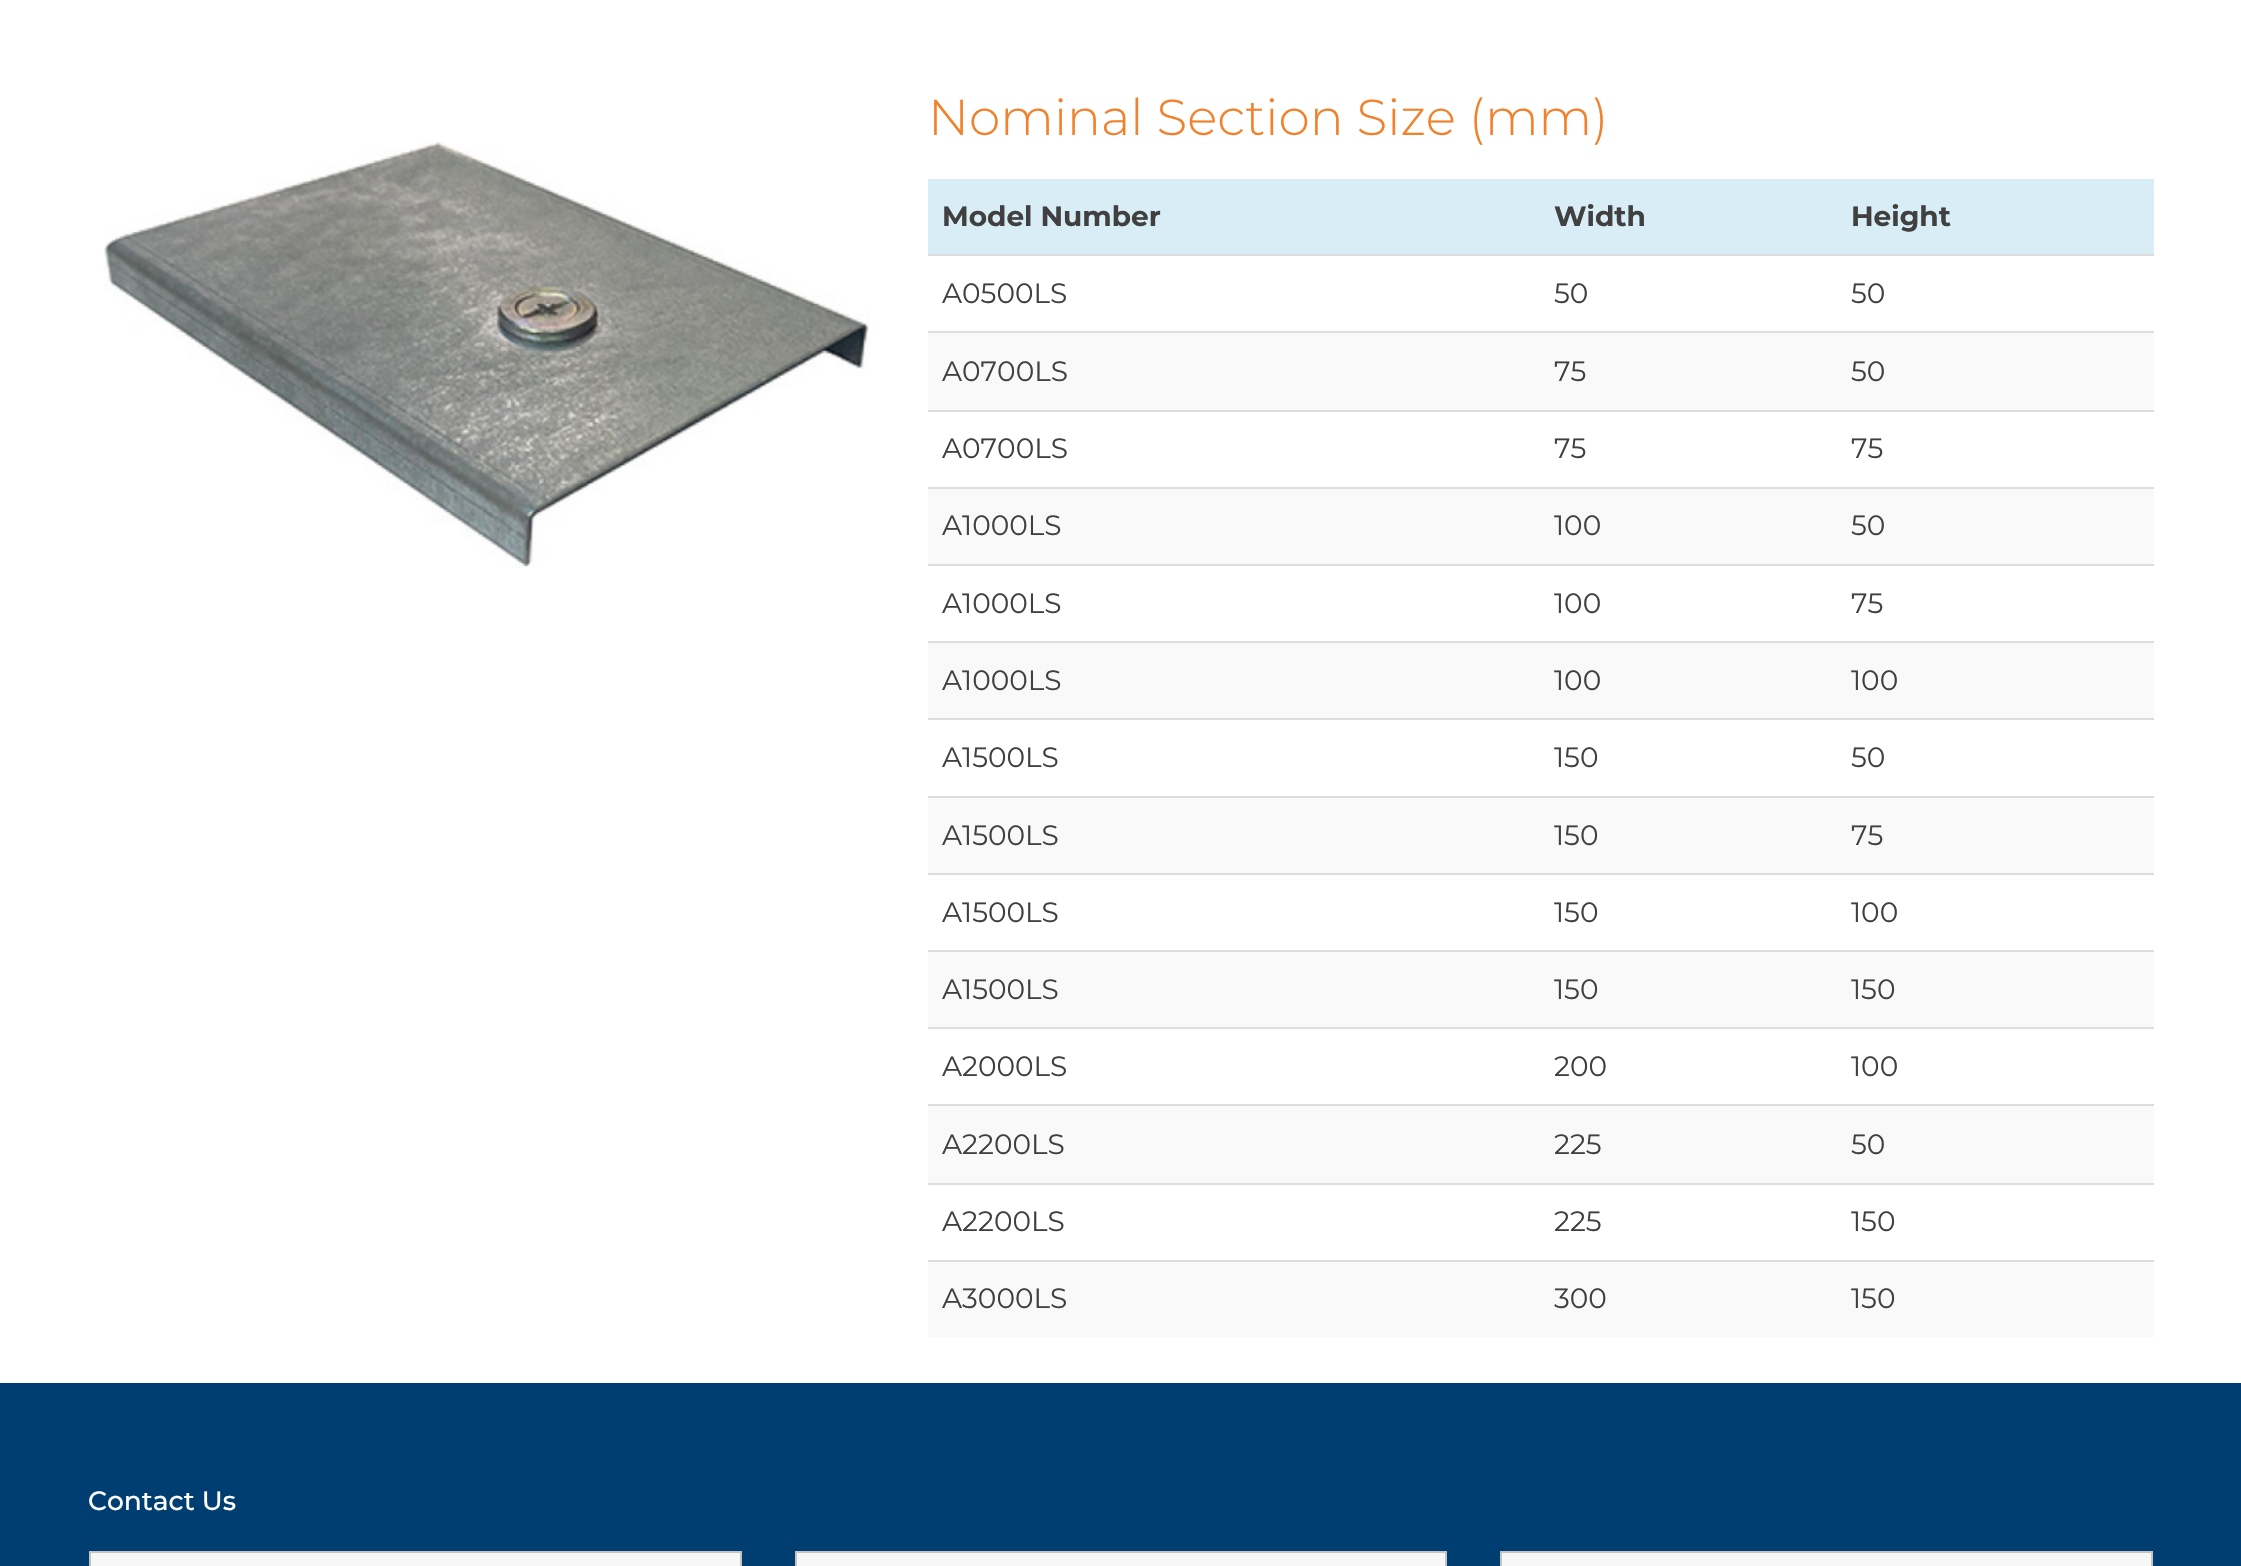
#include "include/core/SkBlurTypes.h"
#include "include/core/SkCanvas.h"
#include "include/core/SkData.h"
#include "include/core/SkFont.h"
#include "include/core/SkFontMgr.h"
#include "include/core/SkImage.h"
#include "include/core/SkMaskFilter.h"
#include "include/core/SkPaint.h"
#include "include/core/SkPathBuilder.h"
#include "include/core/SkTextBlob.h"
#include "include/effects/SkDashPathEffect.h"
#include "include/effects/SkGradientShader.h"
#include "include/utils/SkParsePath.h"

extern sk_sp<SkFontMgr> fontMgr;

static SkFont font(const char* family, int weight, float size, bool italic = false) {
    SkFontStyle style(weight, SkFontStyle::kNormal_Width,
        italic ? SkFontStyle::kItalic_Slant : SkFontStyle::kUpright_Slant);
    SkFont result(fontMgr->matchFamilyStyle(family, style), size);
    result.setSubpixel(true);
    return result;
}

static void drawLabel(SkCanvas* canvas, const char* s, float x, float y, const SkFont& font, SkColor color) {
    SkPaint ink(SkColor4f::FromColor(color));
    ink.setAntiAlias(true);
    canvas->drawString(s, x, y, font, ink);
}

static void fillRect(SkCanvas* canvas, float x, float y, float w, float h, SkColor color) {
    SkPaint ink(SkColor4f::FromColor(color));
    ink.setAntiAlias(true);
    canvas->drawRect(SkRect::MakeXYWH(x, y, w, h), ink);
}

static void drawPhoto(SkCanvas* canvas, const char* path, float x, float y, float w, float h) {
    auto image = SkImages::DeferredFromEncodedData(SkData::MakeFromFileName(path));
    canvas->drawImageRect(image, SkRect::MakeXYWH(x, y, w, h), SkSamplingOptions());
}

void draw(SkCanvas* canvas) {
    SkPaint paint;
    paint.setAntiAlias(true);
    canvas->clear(0xFFFFFFFF);
    drawPhoto(canvas, "assets/img1.png", 103, 141, 767, 427);
    SkFont font1 = font("Montserrat", 300, 50.4f);
    drawLabel(canvas, "Nominal Section Size (mm)", 928, 135, font1, 0xFFF2812C);
    fillRect(canvas, 928, 179, 1226, 75, 0xFFD9EDF7);
    SkFont font2 = font("Montserrat", 700, 28);
    drawLabel(canvas, "Model Number", 942, 226, font2, 0xFF404040);
    drawLabel(canvas, "Width", 1554, 226, font2, 0xFF404040);
    fillRect(canvas, 928, 254, 1226, 2, 0xFFDDDDDD);
    drawLabel(canvas, "Height", 1851, 226, font2, 0xFF404040);
    SkFont font3 = font("Montserrat", 400, 28);
    drawLabel(canvas, "A0500LS", 942, 303, font3, 0xFF404040);
    drawLabel(canvas, "50", 1554, 303, font3, 0xFF404040);
    drawLabel(canvas, "50", 1851, 303, font3, 0xFF404040);
    fillRect(canvas, 928, 333, 1226, 77, 0xFFF9F9F9);
    drawLabel(canvas, "A0700LS", 942, 381, font3, 0xFF404040);
    drawLabel(canvas, "75", 1554, 381, font3, 0xFF404040);
    fillRect(canvas, 928, 331, 1226, 2, 0xFFDDDDDD);
    drawLabel(canvas, "50", 1851, 381, font3, 0xFF404040);
    drawLabel(canvas, "A0700LS", 942, 458, font3, 0xFF404040);
    drawLabel(canvas, "75", 1554, 458, font3, 0xFF404040);
    fillRect(canvas, 928, 410, 1226, 2, 0xFFDDDDDD);
    drawLabel(canvas, "75", 1851, 458, font3, 0xFF404040);
    fillRect(canvas, 928, 489, 1226, 75, 0xFFF9F9F9);
    drawLabel(canvas, "A1000LS", 942, 535, font3, 0xFF404040);
    drawLabel(canvas, "100", 1554, 535, font3, 0xFF404040);
    fillRect(canvas, 928, 487, 1226, 2, 0xFFDDDDDD);
    drawLabel(canvas, "50", 1851, 535, font3, 0xFF404040);
    drawLabel(canvas, "A1000LS", 942, 613, font3, 0xFF404040);
    drawLabel(canvas, "100", 1554, 613, font3, 0xFF404040);
    fillRect(canvas, 928, 564, 1226, 2, 0xFFDDDDDD);
    drawLabel(canvas, "75", 1851, 613, font3, 0xFF404040);
    fillRect(canvas, 928, 643, 1226, 75, 0xFFF9F9F9);
    drawLabel(canvas, "A1000LS", 942, 690, font3, 0xFF404040);
    drawLabel(canvas, "100", 1554, 690, font3, 0xFF404040);
    fillRect(canvas, 928, 641, 1226, 2, 0xFFDDDDDD);
    drawLabel(canvas, "100", 1851, 690, font3, 0xFF404040);
    drawLabel(canvas, "A1500LS", 942, 767, font3, 0xFF404040);
    drawLabel(canvas, "150", 1554, 767, font3, 0xFF404040);
    fillRect(canvas, 928, 718, 1226, 2, 0xFFDDDDDD);
    drawLabel(canvas, "50", 1851, 767, font3, 0xFF404040);
    fillRect(canvas, 928, 798, 1226, 75, 0xFFF9F9F9);
    drawLabel(canvas, "A1500LS", 942, 845, font3, 0xFF404040);
    drawLabel(canvas, "150", 1554, 845, font3, 0xFF404040);
    fillRect(canvas, 928, 796, 1226, 2, 0xFFDDDDDD);
    drawLabel(canvas, "75", 1851, 845, font3, 0xFF404040);
    drawLabel(canvas, "A1500LS", 942, 922, font3, 0xFF404040);
    drawLabel(canvas, "150", 1554, 922, font3, 0xFF404040);
    fillRect(canvas, 928, 873, 1226, 2, 0xFFDDDDDD);
    drawLabel(canvas, "100", 1851, 922, font3, 0xFF404040);
    fillRect(canvas, 928, 952, 1226, 75, 0xFFF9F9F9);
    drawLabel(canvas, "A1500LS", 942, 999, font3, 0xFF404040);
    drawLabel(canvas, "150", 1554, 999, font3, 0xFF404040);
    fillRect(canvas, 928, 950, 1226, 2, 0xFFDDDDDD);
    drawLabel(canvas, "150", 1851, 999, font3, 0xFF404040);
    drawLabel(canvas, "A2000LS", 942, 1076, font3, 0xFF404040);
    drawLabel(canvas, "200", 1554, 1076, font3, 0xFF404040);
    fillRect(canvas, 928, 1027, 1226, 2, 0xFFDDDDDD);
    drawLabel(canvas, "100", 1851, 1076, font3, 0xFF404040);
    fillRect(canvas, 928, 1106, 1226, 77, 0xFFF9F9F9);
    drawLabel(canvas, "A2200LS", 942, 1154, font3, 0xFF404040);
    drawLabel(canvas, "225", 1554, 1154, font3, 0xFF404040);
    fillRect(canvas, 928, 1104, 1226, 2, 0xFFDDDDDD);
    drawLabel(canvas, "50", 1851, 1154, font3, 0xFF404040);
    drawLabel(canvas, "A2200LS", 942, 1231, font3, 0xFF404040);
    drawLabel(canvas, "225", 1554, 1231, font3, 0xFF404040);
    fillRect(canvas, 928, 1183, 1226, 2, 0xFFDDDDDD);
    drawLabel(canvas, "150", 1851, 1231, font3, 0xFF404040);
    fillRect(canvas, 928, 1262, 1226, 75, 0xFFF9F9F9);
    drawLabel(canvas, "A3000LS", 942, 1308, font3, 0xFF404040);
    drawLabel(canvas, "300", 1554, 1308, font3, 0xFF404040);
    fillRect(canvas, 928, 1260, 1226, 2, 0xFFDDDDDD);
    drawLabel(canvas, "150", 1851, 1308, font3, 0xFF404040);
    fillRect(canvas, 0, 1383, 2241, 183, 0xFF003E71);
    SkFont font4 = font("Montserrat", 500, 26.5f);
    drawLabel(canvas, "Contact Us", 88, 1510, font4, 0xFFFFFFFF);
    paint.setColor(0xFFF7F7F7);
    canvas->drawRect(SkRect::MakeXYWH(90, 1552, 651, 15), paint);
    paint.setStroke(true);
    paint.setStrokeWidth(2);
    paint.setColor(0xFFC4C4C4);
    canvas->drawRect(SkRect::MakeXYWH(90, 1552, 651, 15), paint);
    paint.setStroke(false);
    paint.setColor(0xFFF7F7F7);
    canvas->drawRect(SkRect::MakeXYWH(796, 1552, 650, 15), paint);
    paint.setStroke(true);
    paint.setColor(0xFFC4C4C4);
    canvas->drawRect(SkRect::MakeXYWH(796, 1552, 650, 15), paint);
    paint.setStroke(false);
    paint.setColor(0xFFF7F7F7);
    canvas->drawRect(SkRect::MakeXYWH(1501, 1552, 651, 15), paint);
    paint.setStroke(true);
    paint.setColor(0xFFC4C4C4);
    canvas->drawRect(SkRect::MakeXYWH(1501, 1552, 651, 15), paint);
}
